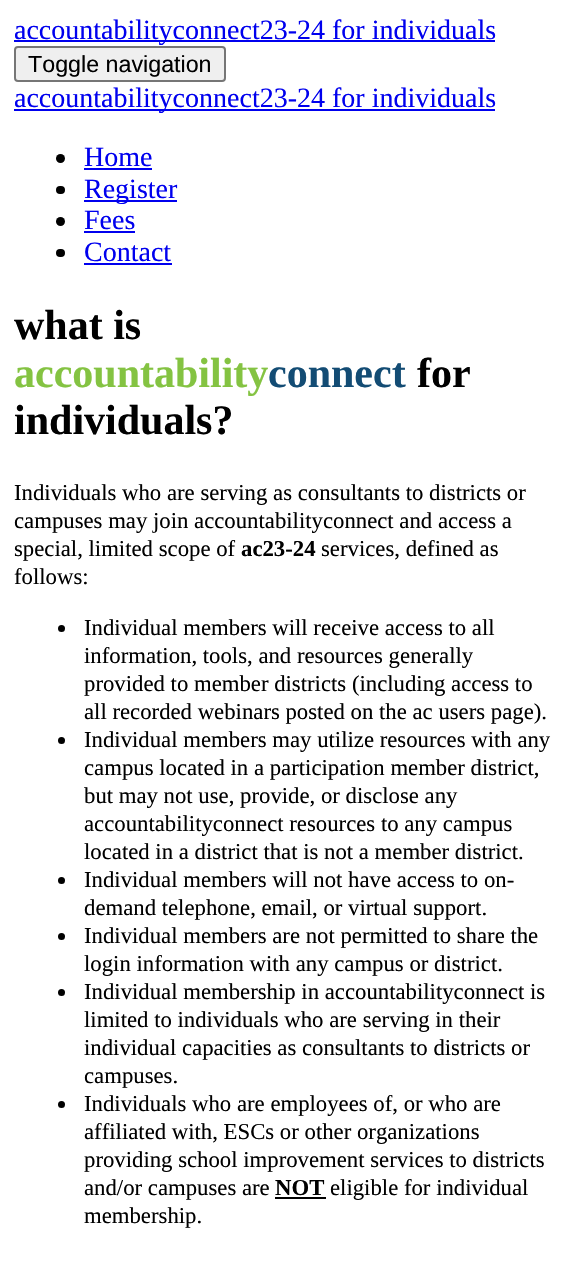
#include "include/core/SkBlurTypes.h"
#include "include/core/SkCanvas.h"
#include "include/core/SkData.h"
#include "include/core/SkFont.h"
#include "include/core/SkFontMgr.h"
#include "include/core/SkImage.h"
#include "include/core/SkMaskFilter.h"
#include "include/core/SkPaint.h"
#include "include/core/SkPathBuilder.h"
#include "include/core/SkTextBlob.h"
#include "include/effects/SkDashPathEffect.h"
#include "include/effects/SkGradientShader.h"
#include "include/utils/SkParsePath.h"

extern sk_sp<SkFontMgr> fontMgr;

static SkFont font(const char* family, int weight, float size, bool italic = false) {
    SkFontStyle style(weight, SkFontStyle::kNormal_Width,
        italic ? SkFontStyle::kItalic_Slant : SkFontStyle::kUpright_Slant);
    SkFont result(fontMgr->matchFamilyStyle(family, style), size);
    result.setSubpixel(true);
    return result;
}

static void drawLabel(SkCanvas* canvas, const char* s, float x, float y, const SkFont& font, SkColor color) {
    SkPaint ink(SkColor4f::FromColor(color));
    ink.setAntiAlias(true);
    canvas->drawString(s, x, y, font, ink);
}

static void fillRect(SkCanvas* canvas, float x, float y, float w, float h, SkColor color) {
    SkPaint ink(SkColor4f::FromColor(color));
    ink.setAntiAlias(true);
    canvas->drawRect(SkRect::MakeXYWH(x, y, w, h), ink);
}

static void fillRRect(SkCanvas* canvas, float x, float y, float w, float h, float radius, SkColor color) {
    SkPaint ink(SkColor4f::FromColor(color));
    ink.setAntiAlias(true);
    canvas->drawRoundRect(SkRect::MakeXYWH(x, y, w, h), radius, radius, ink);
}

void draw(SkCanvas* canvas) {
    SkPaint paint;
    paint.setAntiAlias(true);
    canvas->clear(0xFFFFFFFF);
    fillRect(canvas, 14, 40, 481, 2, 0xFF0000EE);
    SkFont font1 = font("Liberation Serif", 400, 28);
    drawLabel(canvas, "accountabilityconnect23-24 for individuals", 14, 39, font1, 0xFF0000EE);
    paint.setColor(0xFFEFEFEF);
    canvas->drawRoundRect(SkRect::MakeXYWH(15, 47, 210, 34), 3, 3, paint);
    paint.setStroke(true);
    paint.setStrokeWidth(2);
    paint.setColor(0xFF767676);
    canvas->drawRoundRect(SkRect::MakeXYWH(15, 47, 210, 34), 3, 3, paint);
    SkFont font2 = font("Liberation Sans", 400, 23.25f);
    drawLabel(canvas, "Toggle navigation", 28, 72, font2, 0xFF000000);
    fillRect(canvas, 14, 109, 481, 2, 0xFF0000EE);
    drawLabel(canvas, "accountabilityconnect23-24 for individuals", 14, 107, font1, 0xFF0000EE);
    paint.setStroke(false);
    paint.setColor(0xFF000000);
    canvas->drawCircle(60.5f, 158.5f, 4.5f, paint);
    drawLabel(canvas, "Home", 84, 166, font1, 0xFF0000EE);
    fillRect(canvas, 84, 168, 68, 2, 0xFF0000EE);
    fillRRect(canvas, 56, 186, 9, 8, 4, 0xFF000000);
    fillRect(canvas, 84, 200, 93, 2, 0xFF0000EE);
    drawLabel(canvas, "Register", 84, 198, font1, 0xFF0000EE);
    canvas->drawCircle(60.5f, 221.5f, 4.5f, paint);
    drawLabel(canvas, "Fees", 84, 229, font1, 0xFF0000EE);
    fillRect(canvas, 84, 231, 51, 2, 0xFF0000EE);
    fillRRect(canvas, 56, 249, 9, 8, 4, 0xFF000000);
    drawLabel(canvas, "Contact", 84, 261, font1, 0xFF0000EE);
    fillRect(canvas, 84, 263, 88, 2, 0xFF0000EE);
    SkFont font3 = font("Liberation Serif", 700, 42);
    drawLabel(canvas, "what is", 14, 339, font3, 0xFF000000);
    drawLabel(canvas, "accountability", 14, 387, font3, 0xFF84C342);
    drawLabel(canvas, "connect", 268, 387, font3, 0xFF134C74);
    drawLabel(canvas, "for", 417, 387, font3, 0xFF000000);
    drawLabel(canvas, "individuals?", 14, 434, font3, 0xFF000000);
    SkFont font4 = font("Liberation Serif", 400, 22.75f);
    drawLabel(canvas, "Individuals who are serving as consultants to districts or", 14, 500, font4, 0xFF000000);
    drawLabel(canvas, "campuses may join accountabilityconnect and access a", 14, 528, font4, 0xFF000000);
    drawLabel(canvas, "special, limited scope of", 14, 556, font4, 0xFF000000);
    SkFont font5 = font("Liberation Serif", 700, 22.75f);
    drawLabel(canvas, "ac23-24", 241, 556, font5, 0xFF000000);
    drawLabel(canvas, "services, defined as", 321, 556, font4, 0xFF000000);
    drawLabel(canvas, "follows:", 14, 584, font4, 0xFF000000);
    canvas->drawCircle(61.5f, 628.5f, 3.5f, paint);
    drawLabel(canvas, "Individual members will receive access to all", 84, 635, font4, 0xFF000000);
    drawLabel(canvas, "information, tools, and resources generally", 84, 663, font4, 0xFF000000);
    drawLabel(canvas, "provided to member districts (including access to", 84, 691, font4, 0xFF000000);
    drawLabel(canvas, "all recorded webinars posted on the ac users page).", 84, 719, font4, 0xFF000000);
    canvas->drawCircle(61.5f, 740.5f, 3.5f, paint);
    drawLabel(canvas, "Individual members may utilize resources with any", 84, 747, font4, 0xFF000000);
    drawLabel(canvas, "campus located in a participation member district,", 84, 775, font4, 0xFF000000);
    drawLabel(canvas, "but may not use, provide, or disclose any", 84, 803, font4, 0xFF000000);
    drawLabel(canvas, "accountabilityconnect resources to any campus", 84, 831, font4, 0xFF000000);
    drawLabel(canvas, "located in a district that is not a member district.", 84, 859, font4, 0xFF000000);
    canvas->drawCircle(61.5f, 880.5f, 3.5f, paint);
    drawLabel(canvas, "Individual members will not have access to on-", 84, 887, font4, 0xFF000000);
    drawLabel(canvas, "demand telephone, email, or virtual support.", 84, 915, font4, 0xFF000000);
    canvas->drawCircle(61.5f, 936.5f, 3.5f, paint);
    drawLabel(canvas, "Individual members are not permitted to share the", 84, 943, font4, 0xFF000000);
    drawLabel(canvas, "login information with any campus or district.", 84, 971, font4, 0xFF000000);
    canvas->drawCircle(61.5f, 992.5f, 3.5f, paint);
    drawLabel(canvas, "Individual membership in accountabilityconnect is", 84, 999, font4, 0xFF000000);
    drawLabel(canvas, "limited to individuals who are serving in their", 84, 1027, font4, 0xFF000000);
    drawLabel(canvas, "individual capacities as consultants to districts or", 84, 1055, font4, 0xFF000000);
    drawLabel(canvas, "campuses.", 84, 1083, font4, 0xFF000000);
    canvas->drawCircle(61.5f, 1104.5f, 3.5f, paint);
    drawLabel(canvas, "Individuals who are employees of, or who are", 84, 1111, font4, 0xFF000000);
    drawLabel(canvas, "affiliated with, ESCs or other organizations", 84, 1139, font4, 0xFF000000);
    drawLabel(canvas, "providing school improvement services to districts", 84, 1167, font4, 0xFF000000);
    drawLabel(canvas, "and/or campuses are", 84, 1195, font4, 0xFF000000);
    drawLabel(canvas, "NOT", 275, 1195, font5, 0xFF000000);
    fillRect(canvas, 275, 1197, 51, 2, 0xFF000000);
    drawLabel(canvas, "eligible for individual", 330, 1195, font4, 0xFF000000);
    drawLabel(canvas, "membership.", 84, 1223, font4, 0xFF000000);
}
